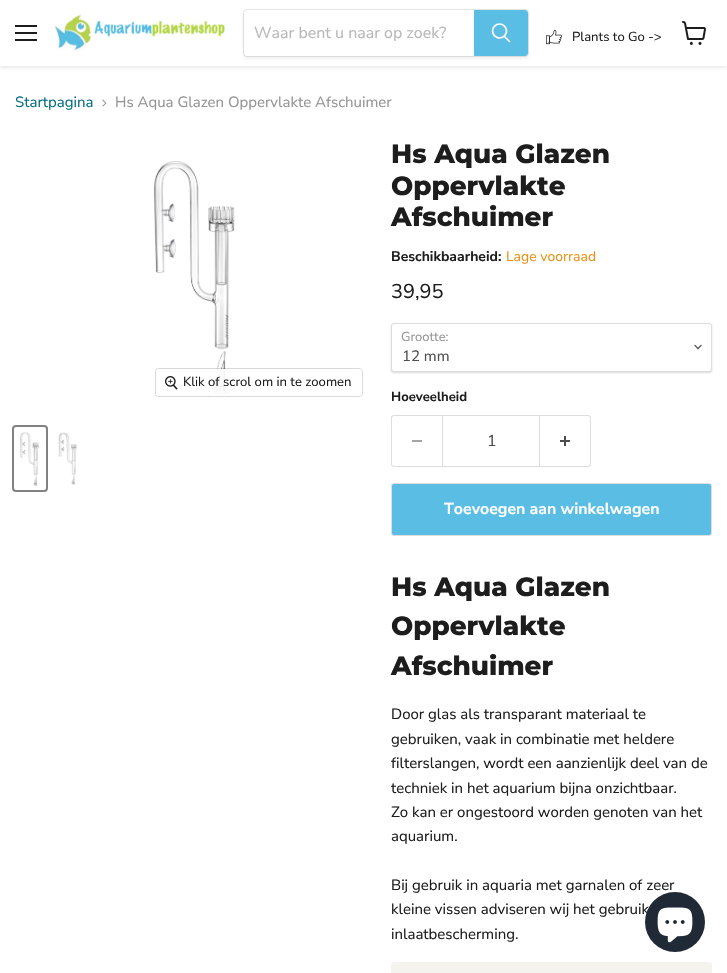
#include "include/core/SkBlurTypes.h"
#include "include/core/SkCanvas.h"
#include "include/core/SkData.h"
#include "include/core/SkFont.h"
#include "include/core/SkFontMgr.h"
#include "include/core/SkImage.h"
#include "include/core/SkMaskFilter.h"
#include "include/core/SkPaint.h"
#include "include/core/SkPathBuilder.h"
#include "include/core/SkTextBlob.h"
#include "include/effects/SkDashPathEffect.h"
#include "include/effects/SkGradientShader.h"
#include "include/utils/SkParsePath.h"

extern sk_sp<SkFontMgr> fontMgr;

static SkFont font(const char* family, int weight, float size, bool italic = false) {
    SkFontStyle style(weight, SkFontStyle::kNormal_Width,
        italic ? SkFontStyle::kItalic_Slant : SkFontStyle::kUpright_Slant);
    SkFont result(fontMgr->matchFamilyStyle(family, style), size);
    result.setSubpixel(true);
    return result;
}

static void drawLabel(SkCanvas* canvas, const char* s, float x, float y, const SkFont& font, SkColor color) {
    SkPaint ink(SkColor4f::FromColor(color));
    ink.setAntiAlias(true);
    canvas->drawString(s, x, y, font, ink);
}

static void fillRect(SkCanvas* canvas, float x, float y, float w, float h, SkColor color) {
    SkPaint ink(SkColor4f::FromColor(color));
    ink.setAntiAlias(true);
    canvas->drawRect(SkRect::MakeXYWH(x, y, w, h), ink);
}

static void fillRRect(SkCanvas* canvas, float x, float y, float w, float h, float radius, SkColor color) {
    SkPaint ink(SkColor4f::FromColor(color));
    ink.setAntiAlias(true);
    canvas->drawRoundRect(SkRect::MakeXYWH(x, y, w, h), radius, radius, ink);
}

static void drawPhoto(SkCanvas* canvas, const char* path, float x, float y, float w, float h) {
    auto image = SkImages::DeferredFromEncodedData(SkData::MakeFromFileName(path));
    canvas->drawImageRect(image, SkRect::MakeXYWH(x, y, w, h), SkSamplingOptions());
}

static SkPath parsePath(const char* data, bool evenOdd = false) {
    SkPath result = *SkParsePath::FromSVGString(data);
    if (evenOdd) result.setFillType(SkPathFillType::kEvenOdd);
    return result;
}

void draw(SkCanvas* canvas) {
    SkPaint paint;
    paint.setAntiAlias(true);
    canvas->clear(0xFFFFFFFF);
    canvas->save();
    canvas->clipRect(SkRect::MakeXYWH(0, 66, 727, 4));
    paint.setColor(0x40808080);
    paint.setMaskFilter(SkMaskFilter::MakeBlur(kNormal_SkBlurStyle, 2));
    canvas->drawRect(SkRect::MakeXYWH(0, 1, 727, 66), paint);
    paint.setMaskFilter(nullptr);
    canvas->restore();
    fillRect(canvas, 15, 25, 22, 2, 0xFF1D1D1D);
    fillRect(canvas, 15, 32, 22, 2, 0xFF1D1D1D);
    fillRect(canvas, 15, 39, 22, 2, 0xFF1D1D1D);
    drawPhoto(canvas, "assets/img1.png", 54, 14, 172, 37);
    paint.setColor(0x1C808080);
    paint.setMaskFilter(SkMaskFilter::MakeBlur(kNormal_SkBlurStyle, 1.5f));
    canvas->drawRoundRect(SkRect::MakeXYWH(243, 11, 286, 48), 4, 4, paint);
    paint.setMaskFilter(nullptr);
    paint.setStroke(true);
    paint.setStrokeWidth(1);
    paint.setColor(0x33808080);
    canvas->drawRoundRect(SkRect::MakeXYWH(243.5f, 9.5f, 285, 47), 3.5f, 3.5f, paint);
    paint.setStroke(false);
    paint.setColor(0xFFFFFFFF);
    canvas->drawPath(parsePath("M247 10H474V56H247C245.5 56 244 54.5 244 53V13C244 11.5 245.5 10 247 10Z"), paint);
    SkFont font1 = font("Nunito Sans", 400, 16);
    drawLabel(canvas, "Waar bent u naar op zoek?", 254, 38, font1, 0xFFB8B8B8);
    paint.setColor(0xFF59BDE4);
    canvas->drawPath(parsePath("M474.5 10.5H525C526.5 10.5 527.5 11.5 527.5 13V53C527.5 54.5 526.5 55.5 525 55.5H474.5Z"), paint);
    paint.setStroke(true);
    canvas->drawPath(parsePath("M474.5 10.5H525C526.5 10.5 527.5 11.5 527.5 13V53C527.5 54.5 526.5 55.5 525 55.5H474.5Z"), paint);
    paint.setStrokeWidth(1.7f);
    paint.setStrokeCap(SkPaint::kRound_Cap);
    paint.setColor(0xFFFFFFFF);
    canvas->drawPath(parsePath("M509.5 41.5L504.5 36.5"), paint);
    paint.setStrokeCap(SkPaint::kButt_Cap);
    canvas->drawCircle(499.5f, 31, 7, paint);
    drawPhoto(canvas, "assets/img2.png", 546, 29, 16, 16);
    SkFont font2 = font("Nunito Sans", 400, 13.1f);
    drawLabel(canvas, "Plants to Go ->", 572, 41, font2, 0xFF1D1D1D);
    drawPhoto(canvas, "assets/img3.png", 682, 21, 24, 24);
    SkFont font3 = font("Nunito Sans", 400, 15);
    drawLabel(canvas, "Startpagina", 15, 107, font3, 0xFF046E82);
    drawPhoto(canvas, "assets/img4.png", 102, 99, 5, 8);
    drawLabel(canvas, "Hs Aqua Glazen Oppervlakte Afschuimer", 115, 107, font3, 0xFF949494);
    drawPhoto(canvas, "assets/img5.png", 153, 161, 82, 235);
    paint.setStrokeWidth(1);
    paint.setColor(0x26000000);
    canvas->drawRoundRect(SkRect::MakeXYWH(155.5f, 368.5f, 207, 28), 3.5f, 3.5f, paint);
    fillRRect(canvas, 156, 369, 206, 27, 3, 0xE6FFFFFF);
    drawPhoto(canvas, "assets/img6.png", 165, 376, 13, 14);
    drawLabel(canvas, "Klik of scrol om in te zoomen", 183, 386, font2, 0xFF1D1D1D);
    paint.setStrokeWidth(2);
    paint.setColor(0xFF818181);
    canvas->drawRoundRect(SkRect::MakeXYWH(13, 426, 34, 65), 3, 3, paint);
    drawPhoto(canvas, "assets/img7.png", 20, 432, 21, 54);
    drawPhoto(canvas, "assets/img8.png", 58, 432, 19, 53);
    SkFont font4 = font("Montserrat", 800, 26.25f);
    drawLabel(canvas, "Hs Aqua Glazen", 391, 163, font4, 0xFF1D1D1D);
    drawLabel(canvas, "Oppervlakte", 391, 195, font4, 0xFF1D1D1D);
    drawLabel(canvas, "Afschuimer", 391, 226, font4, 0xFF1D1D1D);
    SkFont font5 = font("Nunito Sans", 700, 14);
    drawLabel(canvas, "Beschikbaarheid:", 391, 261, font5, 0xFF1D1D1D);
    SkFont font6 = font("Nunito Sans", 400, 14);
    drawLabel(canvas, "Lage voorraad", 506, 261, font6, 0xFFE99114);
    SkFont font7 = font("Nunito Sans", 400, 20);
    drawLabel(canvas, "39,95", 391, 298, font7, 0xFF1D1D1D);
    paint.setStroke(false);
    paint.setColor(0x26000000);
    paint.setMaskFilter(SkMaskFilter::MakeBlur(kNormal_SkBlurStyle, 1));
    canvas->drawRoundRect(SkRect::MakeXYWH(391, 324, 321, 49), 3, 3, paint);
    paint.setMaskFilter(nullptr);
    paint.setColor(0xFFFFFFFF);
    canvas->drawRoundRect(SkRect::MakeXYWH(391.5f, 323.5f, 320, 48), 2.5f, 2.5f, paint);
    paint.setStroke(true);
    paint.setStrokeWidth(1);
    paint.setColor(0xFFDDDDDD);
    canvas->drawRoundRect(SkRect::MakeXYWH(391.5f, 323.5f, 320, 48), 2.5f, 2.5f, paint);
    SkFont font8 = font("Nunito Sans", 400, 13);
    drawLabel(canvas, "Grootte:", 401, 341, font8, 0xFF949494);
    drawPhoto(canvas, "assets/img9.png", 694, 344, 8, 6);
    drawLabel(canvas, "12 mm", 402, 361, font3, 0xFF4D4D4D);
    SkFont font9 = font("Nunito Sans", 700, 13.1f);
    drawLabel(canvas, "Hoeveelheid", 391, 401, font9, 0xFF1D1D1D);
    paint.setStroke(false);
    canvas->drawPath(parsePath("M394 415H442V467H394C392 467 391 466 391 464V418C391 416 392 415 394 415ZM394 416H442V466H394C393 466 392 465 392 464V418C392 417 393 416 394 416Z", true), paint);
    fillRect(canvas, 412, 440, 10, 2, 0xFFA6A6A6);
    paint.setStroke(true);
    canvas->drawRect(SkRect::MakeXYWH(442.5f, 415.5f, 97, 51), paint);
    SkFont font10 = font("Nunito Sans", 400, 15.9f);
    drawLabel(canvas, "1", 487, 446, font10, 0xFF4D4D4D);
    paint.setStroke(false);
    canvas->drawPath(parsePath("M540 415H588C590 415 591 416 591 418V464C591 466 590 467 588 467H540ZM540 416H588C589 416 590 417 590 418V464C590 465 589 466 588 466H540Z", true), paint);
    drawPhoto(canvas, "assets/img10.png", 560, 436, 10, 10);
    paint.setColor(0xFF59BDE4);
    canvas->drawRoundRect(SkRect::MakeXYWH(391.5f, 483.5f, 320, 52), 2.5f, 2.5f, paint);
    paint.setStroke(true);
    paint.setColor(0xFFDDDDDD);
    canvas->drawRoundRect(SkRect::MakeXYWH(391.5f, 483.5f, 320, 52), 2.5f, 2.5f, paint);
    SkFont font11 = font("Nunito Sans", 700, 15.9f);
    drawLabel(canvas, "Toevoegen aan winkelwagen", 444, 514, font11, 0xFFFFFFFF);
    drawLabel(canvas, "Hs Aqua Glazen", 391, 596, font4, 0xFF1D1D1D);
    drawLabel(canvas, "Oppervlakte", 391, 635, font4, 0xFF1D1D1D);
    drawLabel(canvas, "Afschuimer", 391, 675, font4, 0xFF1D1D1D);
    drawLabel(canvas, "Door glas als transparant materiaal te", 391, 719, font3, 0xFF1D1D1D);
    drawLabel(canvas, "gebruiken, vaak in combinatie met heldere", 391, 744, font3, 0xFF1D1D1D);
    drawLabel(canvas, "filterslangen, wordt een aanzienlijk deel van de", 391, 768, font3, 0xFF1D1D1D);
    drawLabel(canvas, "techniek in het aquarium bijna onzichtbaar.", 391, 793, font3, 0xFF1D1D1D);
    drawLabel(canvas, "Zo kan er ongestoord worden genoten van het", 391, 817, font3, 0xFF1D1D1D);
    drawLabel(canvas, "aquarium.", 391, 841, font3, 0xFF1D1D1D);
    drawLabel(canvas, "Bij gebruik in aquaria met garnalen of zeer", 391, 890, font3, 0xFF1D1D1D);
    drawLabel(canvas, "kleine vissen adviseren wij het gebruik", 391, 914, font3, 0xFF1D1D1D);
    drawLabel(canvas, "inlaatbescherming.", 391, 939, font3, 0xFF1D1D1D);
    fillRRect(canvas, 391, 962, 321, 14, 3, 0xFFF5F3ED);
    paint.setStroke(false);
    paint.setColor(0xFF202A36);
    canvas->drawCircle(675, 922, 30, paint);
    drawPhoto(canvas, "assets/img11.png", 657, 907, 36, 36);
}
